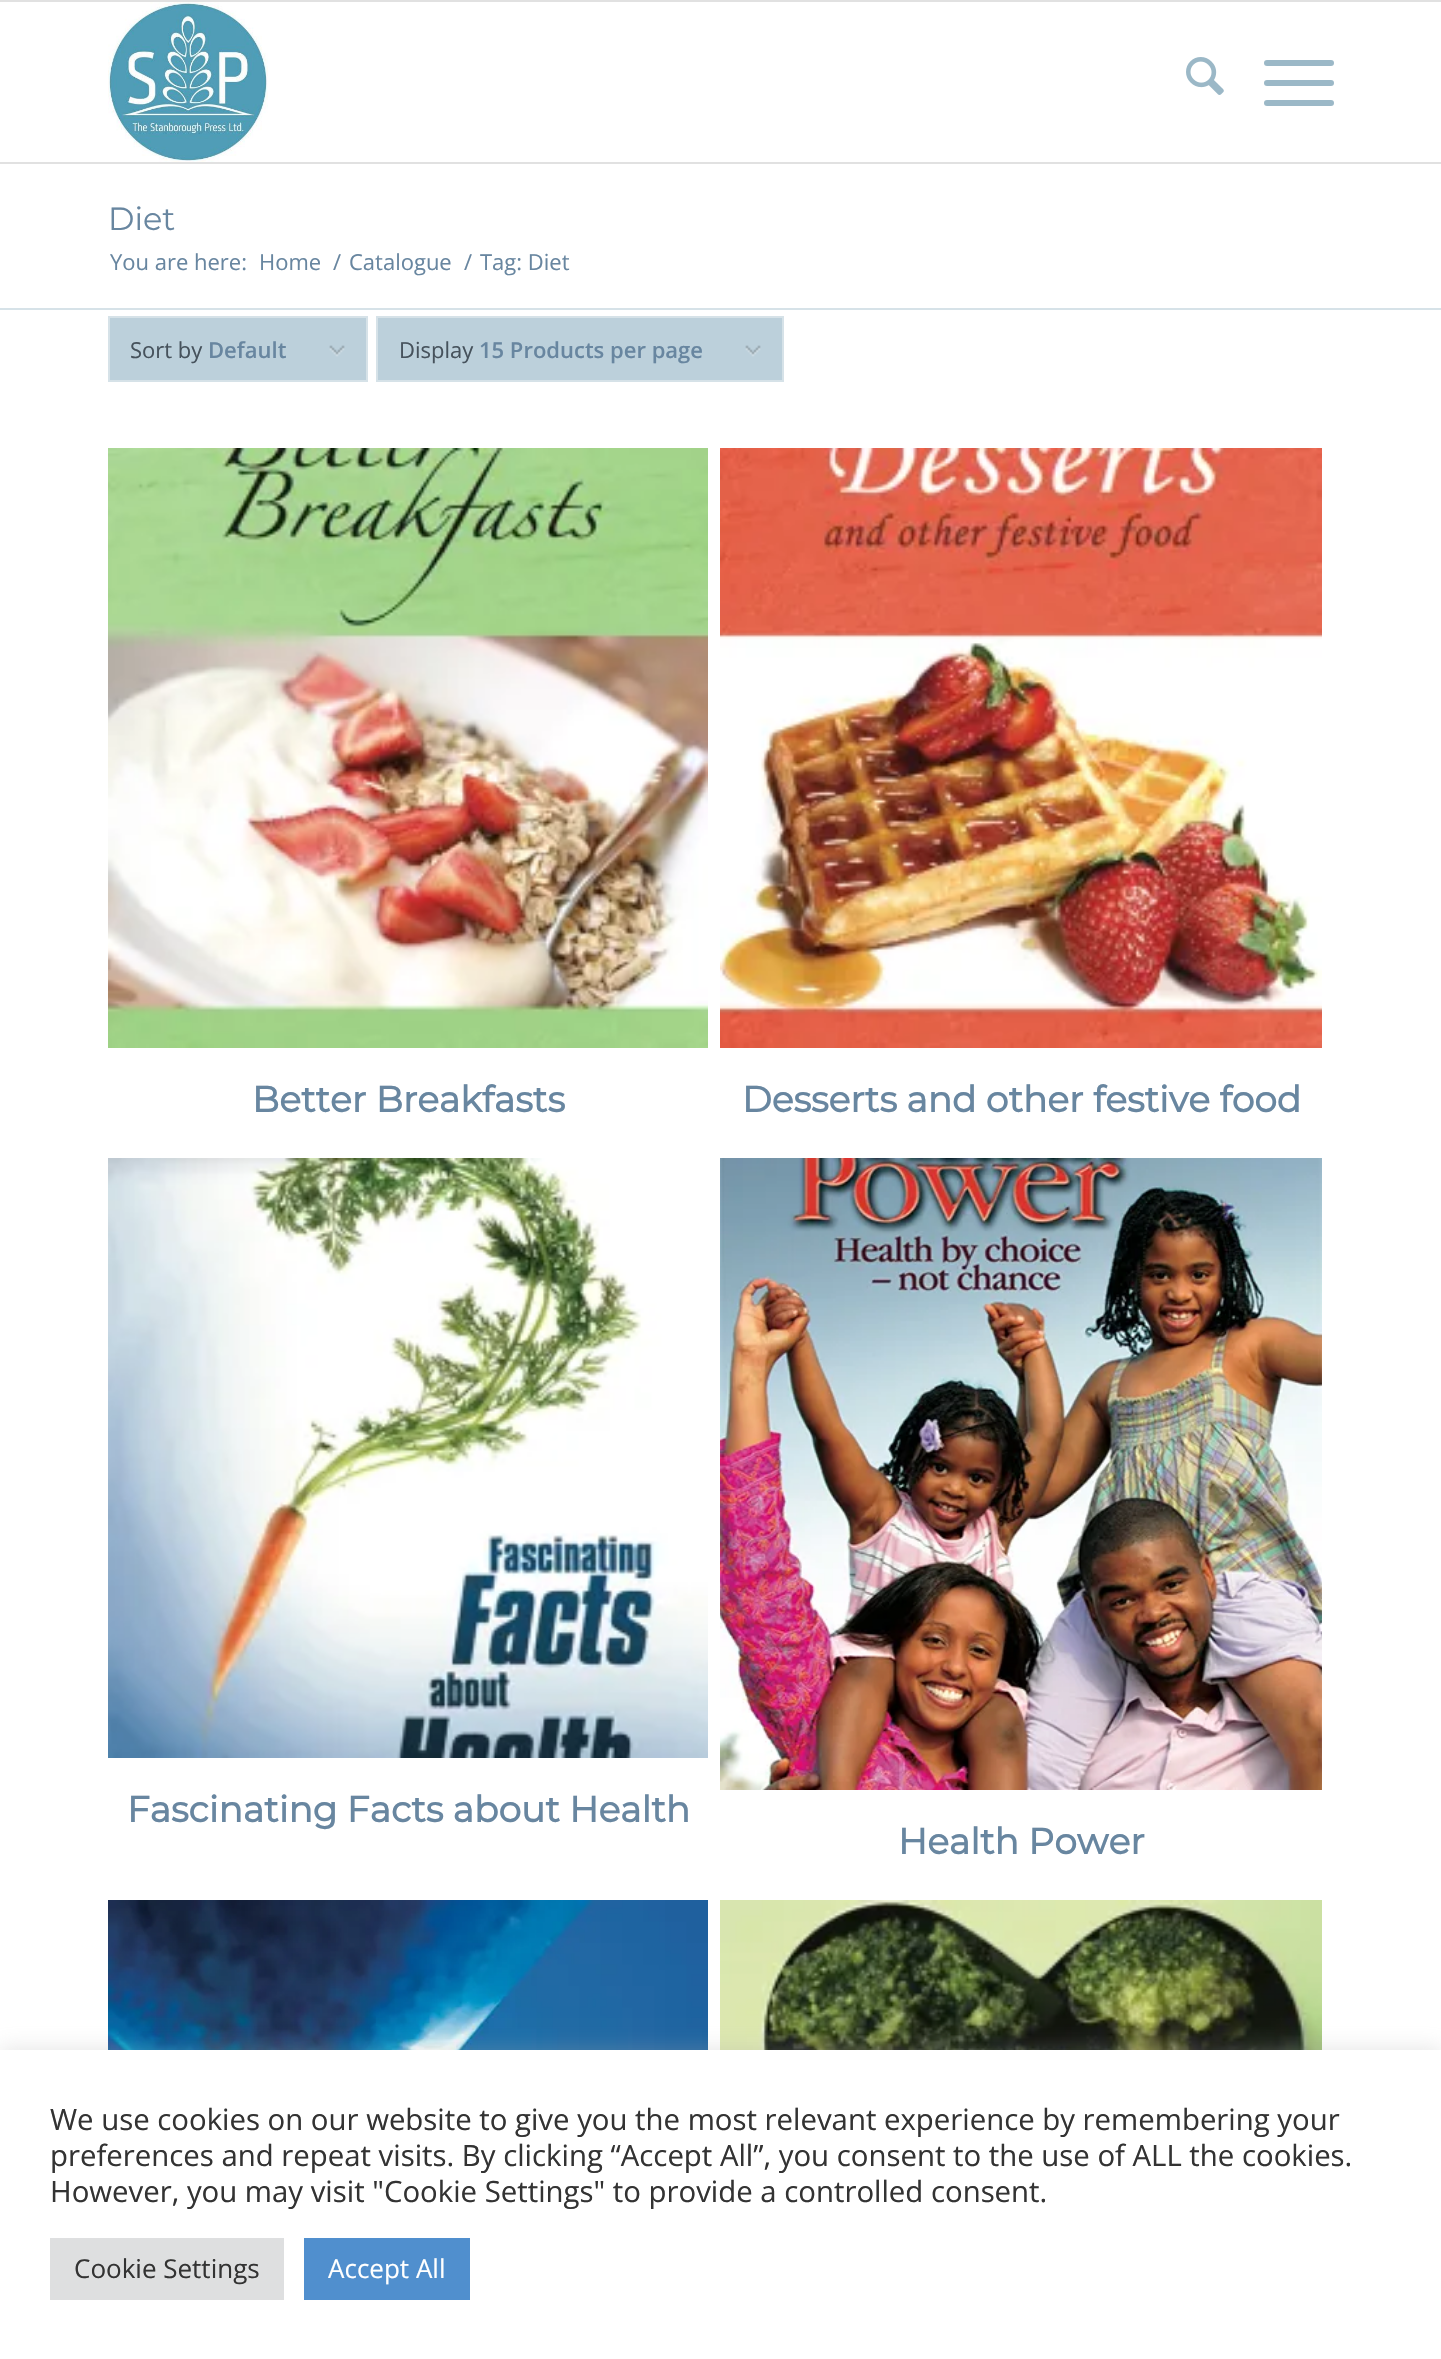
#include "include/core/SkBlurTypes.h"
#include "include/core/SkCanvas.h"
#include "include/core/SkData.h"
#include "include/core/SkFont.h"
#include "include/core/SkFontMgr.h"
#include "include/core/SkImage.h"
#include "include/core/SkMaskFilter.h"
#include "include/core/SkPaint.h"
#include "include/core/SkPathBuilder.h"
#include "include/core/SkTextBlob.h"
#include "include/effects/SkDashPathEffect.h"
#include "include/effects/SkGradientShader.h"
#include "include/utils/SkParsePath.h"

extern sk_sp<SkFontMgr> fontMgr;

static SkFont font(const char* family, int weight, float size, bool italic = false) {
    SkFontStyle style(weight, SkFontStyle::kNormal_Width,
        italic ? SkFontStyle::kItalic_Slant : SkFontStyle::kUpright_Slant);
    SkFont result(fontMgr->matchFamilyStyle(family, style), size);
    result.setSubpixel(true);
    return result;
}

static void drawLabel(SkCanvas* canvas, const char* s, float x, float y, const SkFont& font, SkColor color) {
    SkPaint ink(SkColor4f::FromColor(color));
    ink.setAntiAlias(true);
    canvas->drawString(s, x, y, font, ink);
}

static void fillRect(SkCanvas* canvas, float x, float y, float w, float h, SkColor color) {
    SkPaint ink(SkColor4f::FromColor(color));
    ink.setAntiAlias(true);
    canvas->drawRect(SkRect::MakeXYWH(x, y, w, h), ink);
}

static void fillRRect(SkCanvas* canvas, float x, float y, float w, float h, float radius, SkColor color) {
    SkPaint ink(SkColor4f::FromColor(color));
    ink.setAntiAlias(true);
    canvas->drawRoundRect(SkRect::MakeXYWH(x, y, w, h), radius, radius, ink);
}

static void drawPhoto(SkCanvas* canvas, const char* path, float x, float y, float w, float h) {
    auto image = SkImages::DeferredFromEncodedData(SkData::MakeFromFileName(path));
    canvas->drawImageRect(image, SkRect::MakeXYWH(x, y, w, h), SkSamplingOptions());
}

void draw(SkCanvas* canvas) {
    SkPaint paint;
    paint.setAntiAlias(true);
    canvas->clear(0xFFFFFFFF);
    fillRect(canvas, 0, 0, 1441, 2, 0xFFE1E1E1);
    fillRect(canvas, 0, 162, 1441, 2, 0xFFE1E1E1);
    drawPhoto(canvas, "assets/img1.png", 108, 2, 160, 160);
    drawPhoto(canvas, "assets/img2.png", 1186, 57, 38, 38);
    fillRRect(canvas, 1264, 80, 70, 6, 3, 0xFF9BB8C7);
    fillRRect(canvas, 1264, 60, 70, 6, 3, 0xFF9BB8C7);
    fillRRect(canvas, 1264, 100, 70, 6, 3, 0xFF9BB8C7);
    SkFont font1 = font("Montserrat", 100, 32);
    drawLabel(canvas, "Diet", 108, 230, font1, 0xFF6886A0);
    SkFont font2 = font("Open Sans", 400, 22);
    drawLabel(canvas, "You are here:", 110, 270, font2, 0xFF6886A0);
    drawLabel(canvas, "Home", 259, 270, font2, 0xFF6886A0);
    drawLabel(canvas, "/", 333, 270, font2, 0xFF6886A0);
    drawLabel(canvas, "Catalogue", 349, 270, font2, 0xFF6886A0);
    drawLabel(canvas, "/", 464, 270, font2, 0xFF6886A0);
    drawLabel(canvas, "Tag: Diet", 480, 270, font2, 0xFF6886A0);
    fillRect(canvas, 0, 308, 1441, 2, 0xFFD6E2E8);
    fillRect(canvas, 110, 318, 256, 62, 0xFFBCD0DB);
    drawPhoto(canvas, "assets/img3.png", 329, 345, 16, 12);
    paint.setStroke(true);
    paint.setStrokeWidth(2);
    paint.setColor(0xFFD6E2E8);
    canvas->drawRect(SkRect::MakeXYWH(109, 317, 258, 64), paint);
    drawLabel(canvas, "Sort by", 130, 358, font2, 0xFF46525C);
    SkFont font3 = font("Open Sans", 600, 22);
    drawLabel(canvas, "Default", 208, 358, font3, 0xFF6886A0);
    fillRect(canvas, 378, 318, 404, 62, 0xFFBCD0DB);
    drawPhoto(canvas, "assets/img3.png", 745, 345, 16, 12);
    canvas->drawRect(SkRect::MakeXYWH(377, 317, 406, 64), paint);
    drawLabel(canvas, "Display", 399, 358, font2, 0xFF46525C);
    drawLabel(canvas, "15 Products per page", 479, 358, font3, 0xFF6886A0);
    drawPhoto(canvas, "assets/img4.png", 108, 448, 600, 600);
    SkFont font4 = font("Montserrat", 700, 36);
    drawLabel(canvas, "Better Breakfasts", 252, 1112, font4, 0xFF6886A0);
    drawPhoto(canvas, "assets/img5.png", 720, 448, 602, 600);
    drawLabel(canvas, "Desserts and other festive food", 742, 1112, font4, 0xFF6886A0);
    drawPhoto(canvas, "assets/img6.png", 108, 1158, 600, 600);
    drawLabel(canvas, "Fascinating Facts about Health", 127, 1822, font4, 0xFF6886A0);
    drawPhoto(canvas, "assets/img7.png", 720, 1158, 602, 632);
    drawLabel(canvas, "Health Power", 898, 1854, font4, 0xFF6886A0);
    drawPhoto(canvas, "assets/img8.png", 108, 1900, 600, 150);
    drawPhoto(canvas, "assets/img9.png", 720, 1900, 602, 150);
    paint.setStroke(false);
    paint.setColor(0x4DACABAB);
    paint.setMaskFilter(SkMaskFilter::MakeBlur(kNormal_SkBlurStyle, 10));
    canvas->drawRect(SkRect::MakeXYWH(0, 2048, 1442, 310), paint);
    paint.setMaskFilter(nullptr);
    fillRect(canvas, 0, 2050, 1441, 309, 0xFFFFFFFF);
    SkFont font5 = font("Open Sans", 400, 29.35f);
    drawLabel(canvas, "We use cookies on our website to give you the most relevant experience by remembering your", 50, 2130, font5, 0xFF333333);
    drawLabel(canvas, "preferences and repeat visits. By clicking “Accept All”, you consent to the use of ALL the cookies.", 50, 2166, font5, 0xFF333333);
    drawLabel(canvas, "However, you may visit \"Cookie Settings\" to provide a controlled consent.", 50, 2202, font5, 0xFF333333);
    fillRect(canvas, 50, 2238, 234, 62, 0xFFDEDFE0);
    SkFont font6 = font("Open Sans", 400, 26);
    drawLabel(canvas, "Cookie Settings", 74, 2278, font6, 0xFF333333);
    fillRect(canvas, 304, 2238, 166, 62, 0xFF508FCE);
    drawLabel(canvas, "Accept All", 328, 2278, font6, 0xFFFFFFFF);
}
